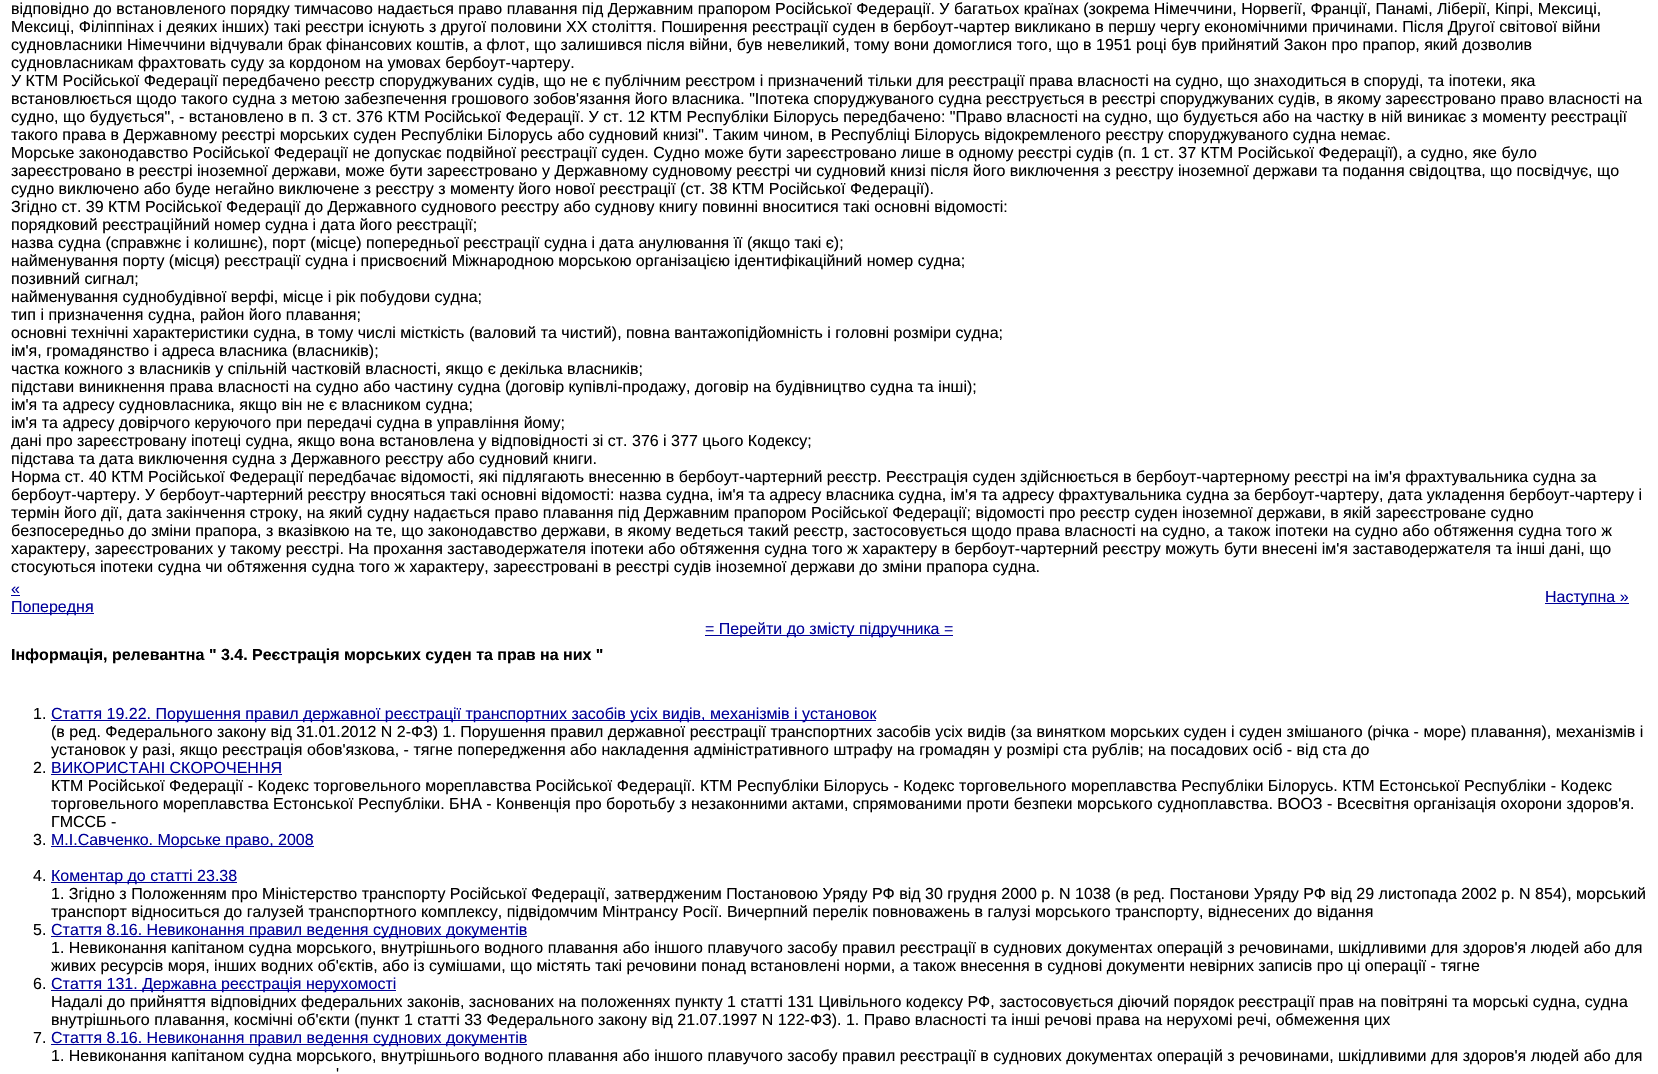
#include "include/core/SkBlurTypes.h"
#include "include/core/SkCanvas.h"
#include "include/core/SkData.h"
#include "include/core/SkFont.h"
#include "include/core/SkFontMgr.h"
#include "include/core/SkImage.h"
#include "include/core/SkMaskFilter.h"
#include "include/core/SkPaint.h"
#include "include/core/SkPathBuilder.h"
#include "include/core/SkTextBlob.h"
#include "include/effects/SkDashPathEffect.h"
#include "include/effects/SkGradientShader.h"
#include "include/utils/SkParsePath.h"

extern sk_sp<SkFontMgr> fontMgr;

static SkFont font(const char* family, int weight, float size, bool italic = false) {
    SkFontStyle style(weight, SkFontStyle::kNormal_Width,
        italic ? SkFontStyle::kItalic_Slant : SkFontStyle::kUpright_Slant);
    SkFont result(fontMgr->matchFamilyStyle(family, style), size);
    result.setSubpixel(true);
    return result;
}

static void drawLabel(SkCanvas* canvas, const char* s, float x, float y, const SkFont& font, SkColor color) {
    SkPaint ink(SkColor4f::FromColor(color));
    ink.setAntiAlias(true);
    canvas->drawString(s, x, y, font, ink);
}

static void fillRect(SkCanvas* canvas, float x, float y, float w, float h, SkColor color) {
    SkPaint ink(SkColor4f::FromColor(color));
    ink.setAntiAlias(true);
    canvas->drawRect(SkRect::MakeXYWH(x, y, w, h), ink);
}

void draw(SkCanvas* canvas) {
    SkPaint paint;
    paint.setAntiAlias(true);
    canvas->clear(0xFFFFFFFF);
    SkFont font1 = font("Liberation Sans", 400, 16);
    drawLabel(canvas, "відповідно до встановленого порядку тимчасово надається право плавання під Державним прапором Російської Федерації. У багатьох країнах (зокрема Німеччини, Норвегії, Франції, Панамі, Ліберії, Кіпрі, Мексиці,", 11, 14, font1, 0xFF000000);
    drawLabel(canvas, "Мексиці, Філіппінах і деяких інших) такі реєстри існують з другої половини XX століття. Поширення реєстрації суден в бербоут-чартер викликано в першу чергу економічними причинами. Після Другої світової війни", 11, 32, font1, 0xFF000000);
    drawLabel(canvas, "судновласники Німеччини відчували брак фінансових коштів, а флот, що залишився після війни, був невеликий, тому вони домоглися того, що в 1951 році був прийнятий Закон про прапор, який дозволив", 11, 50, font1, 0xFF000000);
    drawLabel(canvas, "судновласникам фрахтовать суду за кордоном на умовах бербоут-чартеру.", 11, 68, font1, 0xFF000000);
    drawLabel(canvas, "У КТМ Російської Федерації передбачено реєстр споруджуваних судів, що не є публічним реєстром і призначений тільки для реєстрації права власності на судно, що знаходиться в споруді, та іпотеки, яка", 11, 86, font1, 0xFF000000);
    drawLabel(canvas, "встановлюється щодо такого судна з метою забезпечення грошового зобов'язання його власника. \"Іпотека споруджуваного судна реєструється в реєстрі споруджуваних судів, в якому зареєстровано право власності на", 11, 104, font1, 0xFF000000);
    drawLabel(canvas, "судно, що будується\", - встановлено в п. 3 ст. 376 КТМ Російської Федерації. У ст. 12 КТМ Республіки Білорусь передбачено: \"Право власності на судно, що будується або на частку в ній виникає з моменту реєстрації", 11, 122, font1, 0xFF000000);
    drawLabel(canvas, "такого права в Державному реєстрі морських суден Республіки Білорусь або судновий книзі\". Таким чином, в Республіці Білорусь відокремленого реєстру споруджуваного судна немає.", 11, 140, font1, 0xFF000000);
    drawLabel(canvas, "Морське законодавство Російської Федерації не допускає подвійної реєстрації суден. Судно може бути зареєстровано лише в одному реєстрі судів (п. 1 ст. 37 КТМ Російської Федерації), а судно, яке було", 11, 158, font1, 0xFF000000);
    drawLabel(canvas, "зареєстровано в реєстрі іноземної держави, може бути зареєстровано у Державному судновому реєстрі чи судновий книзі після його виключення з реєстру іноземної держави та подання свідоцтва, що посвідчує, що", 11, 176, font1, 0xFF000000);
    drawLabel(canvas, "судно виключено або буде негайно виключене з реєстру з моменту його нової реєстрації (ст. 38 КТМ Російської Федерації).", 11, 194, font1, 0xFF000000);
    drawLabel(canvas, "Згідно ст. 39 КТМ Російської Федерації до Державного суднового реєстру або суднову книгу повинні вноситися такі основні відомості:", 11, 212, font1, 0xFF000000);
    drawLabel(canvas, "порядковий реєстраційний номер судна і дата його реєстрації;", 11, 230, font1, 0xFF000000);
    drawLabel(canvas, "назва судна (справжнє і колишнє), порт (місце) попередньої реєстрації судна і дата анулювання її (якщо такі є);", 11, 248, font1, 0xFF000000);
    drawLabel(canvas, "найменування порту (місця) реєстрації судна і присвоєний Міжнародною морською організацією ідентифікаційний номер судна;", 11, 266, font1, 0xFF000000);
    drawLabel(canvas, "позивний сигнал;", 11, 284, font1, 0xFF000000);
    drawLabel(canvas, "найменування суднобудівної верфі, місце і рік побудови судна;", 11, 302, font1, 0xFF000000);
    drawLabel(canvas, "тип і призначення судна, район його плавання;", 11, 320, font1, 0xFF000000);
    drawLabel(canvas, "основні технічні характеристики судна, в тому числі місткість (валовий та чистий), повна вантажопідйомність і головні розміри судна;", 11, 338, font1, 0xFF000000);
    drawLabel(canvas, "ім'я, громадянство і адреса власника (власників);", 11, 356, font1, 0xFF000000);
    drawLabel(canvas, "частка кожного з власників у спільній частковій власності, якщо є декілька власників;", 11, 374, font1, 0xFF000000);
    drawLabel(canvas, "підстави виникнення права власності на судно або частину судна (договір купівлі-продажу, договір на будівництво судна та інші);", 11, 392, font1, 0xFF000000);
    drawLabel(canvas, "ім'я та адресу судновласника, якщо він не є власником судна;", 11, 410, font1, 0xFF000000);
    drawLabel(canvas, "ім'я та адресу довірчого керуючого при передачі судна в управління йому;", 11, 428, font1, 0xFF000000);
    drawLabel(canvas, "дані про зареєстровану іпотеці судна, якщо вона встановлена у відповідності зі ст. 376 і 377 цього Кодексу;", 11, 446, font1, 0xFF000000);
    drawLabel(canvas, "підстава та дата виключення судна з Державного реєстру або судновий книги.", 11, 464, font1, 0xFF000000);
    drawLabel(canvas, "Норма ст. 40 КТМ Російської Федерації передбачає відомості, які підлягають внесенню в бербоут-чартерний реєстр. Реєстрація суден здійснюється в бербоут-чартерному реєстрі на ім'я фрахтувальника судна за", 11, 482, font1, 0xFF000000);
    drawLabel(canvas, "бербоут-чартеру. У бербоут-чартерний реєстру вносяться такі основні відомості: назва судна, ім'я та адресу власника судна, ім'я та адресу фрахтувальника судна за бербоут-чартеру, дата укладення бербоут-чартеру і", 11, 500, font1, 0xFF000000);
    drawLabel(canvas, "термін його дії, дата закінчення строку, на який судну надається право плавання під Державним прапором Російської Федерації; відомості про реєстр суден іноземної держави, в якій зареєстроване судно", 11, 518, font1, 0xFF000000);
    drawLabel(canvas, "безпосередньо до зміни прапора, з вказівкою на те, що законодавство держави, в якому ведеться такий реєстр, застосовується щодо права власності на судно, а також іпотеки на судно або обтяження судна того ж", 11, 536, font1, 0xFF000000);
    drawLabel(canvas, "характеру, зареєстрованих у такому реєстрі. На прохання заставодержателя іпотеки або обтяження судна того ж характеру в бербоут-чартерний реєстру можуть бути внесені ім'я заставодержателя та інші дані, що", 11, 554, font1, 0xFF000000);
    drawLabel(canvas, "стосуються іпотеки судна чи обтяження судна того ж характеру, зареєстровані в реєстрі судів іноземної держави до зміни прапора судна.", 11, 572, font1, 0xFF000000);
    drawLabel(canvas, "«", 11, 594, font1, 0xFF000099);
    fillRect(canvas, 11, 595, 9, 1, 0xFF000099);
    fillRect(canvas, 11, 613, 83, 1, 0xFF000099);
    drawLabel(canvas, "Попередня", 11, 612, font1, 0xFF000099);
    fillRect(canvas, 1545, 603, 84, 1, 0xFF000099);
    drawLabel(canvas, "Наступна »", 1545, 602, font1, 0xFF000099);
    fillRect(canvas, 705, 635, 248, 1, 0xFF000099);
    drawLabel(canvas, "= Перейти до змісту підручника =", 705, 634, font1, 0xFF000099);
    SkFont font2 = font("Liberation Sans", 700, 16);
    drawLabel(canvas, "Інформація, релевантна \" 3.4. Реєстрація морських суден та прав на них \"", 11, 660, font2, 0xFF000000);
    drawLabel(canvas, "1.", 33, 719, font1, 0xFF000000);
    fillRect(canvas, 51, 720, 825, 1, 0xFF000099);
    drawLabel(canvas, "Стаття 19.22. Порушення правил державної реєстрації транспортних засобів усіх видів, механізмів і установок", 51, 719, font1, 0xFF000099);
    drawLabel(canvas, "(в ред. Федерального закону від 31.01.2012 N 2-ФЗ) 1. Порушення правил державної реєстрації транспортних засобів усіх видів (за винятком морських суден і суден змішаного (річка - море) плавання), механізмів і", 51, 737, font1, 0xFF000000);
    drawLabel(canvas, "установок у разі, якщо реєстрація обов'язкова, - тягне попередження або накладення адміністративного штрафу на громадян у розмірі ста рублів; на посадових осіб - від ста до", 51, 755, font1, 0xFF000000);
    drawLabel(canvas, "2.", 33, 773, font1, 0xFF000000);
    drawLabel(canvas, "ВИКОРИСТАНІ СКОРОЧЕННЯ", 51, 773, font1, 0xFF000099);
    fillRect(canvas, 51, 774, 231, 1, 0xFF000099);
    drawLabel(canvas, "КТМ Російської Федерації - Кодекс торговельного мореплавства Російської Федерації. КТМ Республіки Білорусь - Кодекс торговельного мореплавства Республіки Білорусь. КТМ Естонської Республіки - Кодекс", 51, 791, font1, 0xFF000000);
    drawLabel(canvas, "торговельного мореплавства Естонської Республіки. БНА - Конвенція про боротьбу з незаконними актами, спрямованими проти безпеки морського судноплавства. ВООЗ - Всесвітня організація охорони здоров'я.", 51, 809, font1, 0xFF000000);
    drawLabel(canvas, "ГМССБ -", 51, 827, font1, 0xFF000000);
    drawLabel(canvas, "3.", 33, 845, font1, 0xFF000000);
    fillRect(canvas, 51, 846, 263, 1, 0xFF000099);
    drawLabel(canvas, "М.І.Савченко. Морське право, 2008", 51, 845, font1, 0xFF000099);
    drawLabel(canvas, "4.", 33, 881, font1, 0xFF000000);
    fillRect(canvas, 51, 882, 186, 1, 0xFF000099);
    drawLabel(canvas, "Коментар до статті 23.38", 51, 881, font1, 0xFF000099);
    drawLabel(canvas, "1. Згідно з Положенням про Міністерство транспорту Російської Федерації, затвердженим Постановою Уряду РФ від 30 грудня 2000 р. N 1038 (в ред. Постанови Уряду РФ від 29 листопада 2002 р. N 854), морський", 51, 899, font1, 0xFF000000);
    drawLabel(canvas, "транспорт відноситься до галузей транспортного комплексу, підвідомчим Мінтрансу Росії. Вичерпний перелік повноважень в галузі морського транспорту, віднесених до відання", 51, 917, font1, 0xFF000000);
    drawLabel(canvas, "5.", 33, 935, font1, 0xFF000000);
    fillRect(canvas, 51, 936, 476, 1, 0xFF000099);
    drawLabel(canvas, "Стаття 8.16. Невиконання правил ведення суднових документів", 51, 935, font1, 0xFF000099);
    drawLabel(canvas, "1. Невиконання капітаном судна морського, внутрішнього водного плавання або іншого плавучого засобу правил реєстрації в суднових документах операцій з речовинами, шкідливими для здоров'я людей або для", 51, 953, font1, 0xFF000000);
    drawLabel(canvas, "живих ресурсів моря, інших водних об'єктів, або із сумішами, що містять такі речовини понад встановлені норми, а також внесення в суднові документи невірних записів про ці операції - тягне", 51, 971, font1, 0xFF000000);
    drawLabel(canvas, "6.", 33, 989, font1, 0xFF000000);
    fillRect(canvas, 51, 990, 345, 1, 0xFF000099);
    drawLabel(canvas, "Стаття 131. Державна реєстрація нерухомості", 51, 989, font1, 0xFF000099);
    drawLabel(canvas, "Надалі до прийняття відповідних федеральних законів, заснованих на положеннях пункту 1 статті 131 Цивільного кодексу РФ, застосовується діючий порядок реєстрації прав на повітряні та морські судна, судна", 51, 1007, font1, 0xFF000000);
    drawLabel(canvas, "внутрішнього плавання, космічні об'єкти (пункт 1 статті 33 Федерального закону від 21.07.1997 N 122-ФЗ). 1. Право власності та інші речові права на нерухомі речі, обмеження цих", 51, 1025, font1, 0xFF000000);
    drawLabel(canvas, "7.", 33, 1043, font1, 0xFF000000);
    fillRect(canvas, 51, 1044, 476, 1, 0xFF000099);
    drawLabel(canvas, "Стаття 8.16. Невиконання правил ведення суднових документів", 51, 1043, font1, 0xFF000099);
    drawLabel(canvas, "1. Невиконання капітаном судна морського, внутрішнього водного плавання або іншого плавучого засобу правил реєстрації в суднових документах операцій з речовинами, шкідливими для здоров'я людей або для", 51, 1061, font1, 0xFF000000);
    drawLabel(canvas, "'", 336, 1079, font1, 0xFF000000);
}
